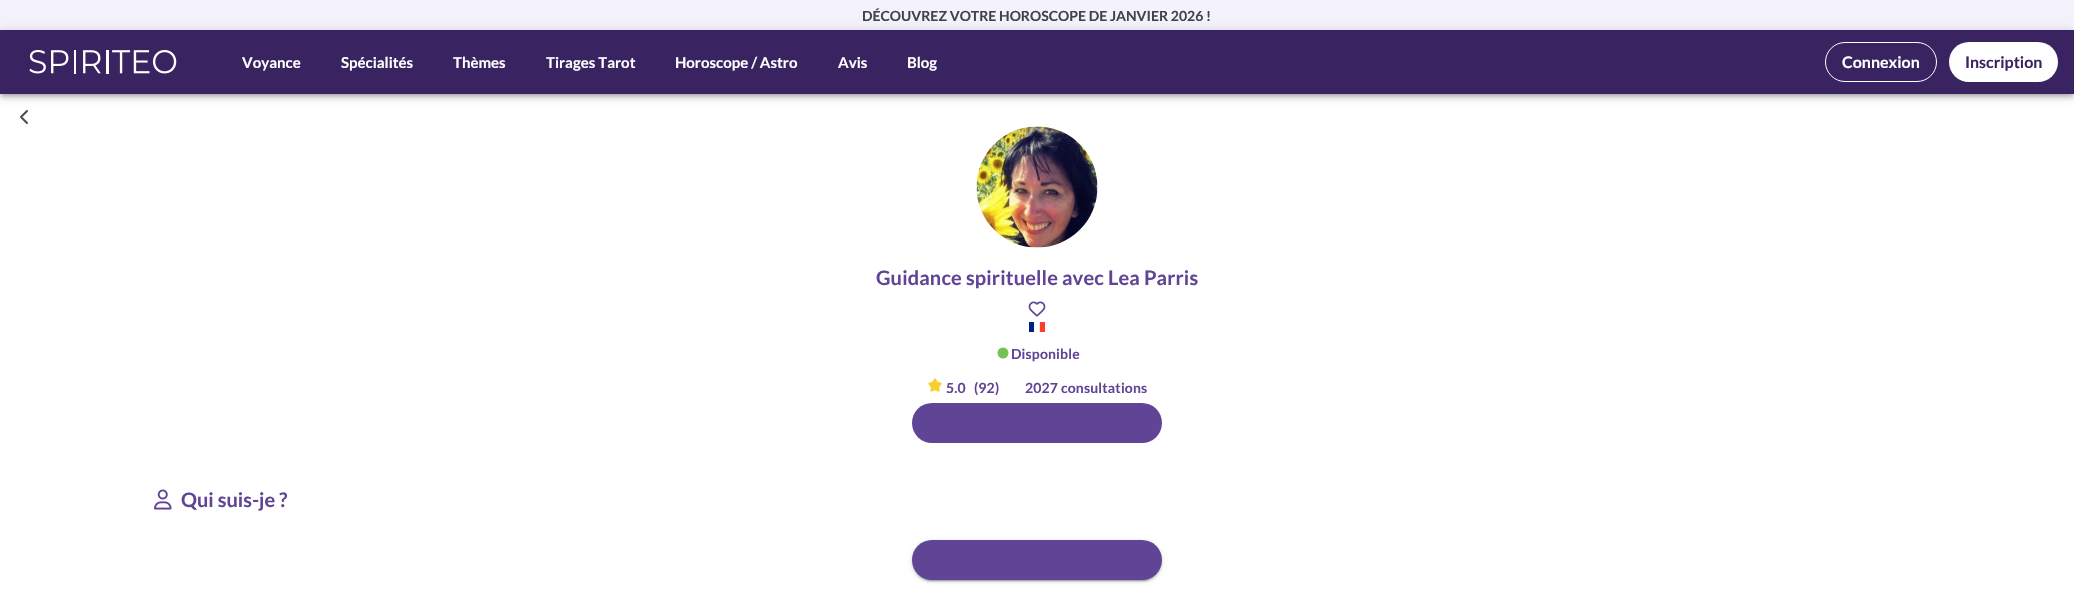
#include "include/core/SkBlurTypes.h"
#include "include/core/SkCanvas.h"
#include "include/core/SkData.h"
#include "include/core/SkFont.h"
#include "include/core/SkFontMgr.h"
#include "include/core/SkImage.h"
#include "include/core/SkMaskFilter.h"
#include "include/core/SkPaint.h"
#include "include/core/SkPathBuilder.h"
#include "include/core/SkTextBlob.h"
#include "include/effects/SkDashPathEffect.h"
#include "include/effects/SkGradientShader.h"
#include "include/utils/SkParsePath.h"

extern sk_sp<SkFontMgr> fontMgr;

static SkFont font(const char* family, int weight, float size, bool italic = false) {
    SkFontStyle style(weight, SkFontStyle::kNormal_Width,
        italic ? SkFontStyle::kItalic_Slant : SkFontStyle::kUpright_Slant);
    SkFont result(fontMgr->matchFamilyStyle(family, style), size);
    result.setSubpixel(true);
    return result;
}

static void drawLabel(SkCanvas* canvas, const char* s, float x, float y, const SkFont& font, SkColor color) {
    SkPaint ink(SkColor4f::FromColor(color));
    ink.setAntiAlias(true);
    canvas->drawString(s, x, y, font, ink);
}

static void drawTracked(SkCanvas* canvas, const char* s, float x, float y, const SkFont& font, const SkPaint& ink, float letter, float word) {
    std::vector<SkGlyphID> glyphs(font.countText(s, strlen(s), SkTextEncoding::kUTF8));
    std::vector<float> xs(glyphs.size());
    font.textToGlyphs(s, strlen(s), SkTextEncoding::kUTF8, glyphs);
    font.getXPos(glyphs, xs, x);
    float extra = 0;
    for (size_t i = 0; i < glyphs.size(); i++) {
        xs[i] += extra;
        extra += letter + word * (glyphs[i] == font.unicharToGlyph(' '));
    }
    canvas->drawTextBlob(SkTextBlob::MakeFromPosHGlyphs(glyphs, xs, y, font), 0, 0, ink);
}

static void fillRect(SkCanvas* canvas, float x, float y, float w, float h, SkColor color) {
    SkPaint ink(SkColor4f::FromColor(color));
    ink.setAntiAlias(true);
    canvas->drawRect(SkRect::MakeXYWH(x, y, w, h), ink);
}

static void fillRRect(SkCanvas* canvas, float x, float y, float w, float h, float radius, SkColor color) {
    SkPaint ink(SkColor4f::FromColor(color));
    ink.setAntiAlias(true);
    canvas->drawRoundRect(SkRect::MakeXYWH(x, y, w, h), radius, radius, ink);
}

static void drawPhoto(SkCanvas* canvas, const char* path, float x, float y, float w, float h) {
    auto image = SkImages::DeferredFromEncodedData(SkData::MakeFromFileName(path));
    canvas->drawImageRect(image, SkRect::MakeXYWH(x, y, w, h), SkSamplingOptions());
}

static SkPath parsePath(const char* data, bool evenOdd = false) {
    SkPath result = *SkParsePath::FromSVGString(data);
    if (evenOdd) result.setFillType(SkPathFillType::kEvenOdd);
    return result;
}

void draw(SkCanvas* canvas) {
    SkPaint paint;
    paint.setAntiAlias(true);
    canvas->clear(0xFFFFFFFF);
    fillRect(canvas, 0, 0, 2074, 30, 0xFFF4F2FB);
    SkFont font1 = font("Lato", 700, 14);
    drawLabel(canvas, "DÉCOUVREZ VOTRE HOROSCOPE DE JANVIER 2026 !", 862, 21, font1, 0xFF42424C);
    paint.setStroke(true);
    paint.setStrokeWidth(2);
    paint.setStrokeCap(SkPaint::kRound_Cap);
    paint.setStrokeJoin(SkPaint::kRound_Join);
    paint.setColor(0xFF504958);
    canvas->drawPath(parsePath("M27 111L21 117L27 123"), paint);
    paint.setStroke(false);
    paint.setColor(0x1F000000);
    paint.setMaskFilter(SkMaskFilter::MakeBlur(kNormal_SkBlurStyle, 5));
    canvas->drawRect(SkRect::MakeXYWH(0, 31, 2074, 64), paint);
    paint.setMaskFilter(nullptr);
    paint.setColor(0x24000000);
    paint.setMaskFilter(SkMaskFilter::MakeBlur(kNormal_SkBlurStyle, 2.5f));
    canvas->drawRect(SkRect::MakeXYWH(0, 34, 2074, 64), paint);
    paint.setMaskFilter(nullptr);
    paint.setColor(0x33000000);
    paint.setMaskFilter(SkMaskFilter::MakeBlur(kNormal_SkBlurStyle, 2));
    canvas->drawRect(SkRect::MakeXYWH(1, 33, 2072, 62), paint);
    paint.setMaskFilter(nullptr);
    fillRect(canvas, 0, 30, 2074, 64, 0xFF392461);
    drawPhoto(canvas, "assets/img1.png", 29, 50, 148, 24);
    SkFont font2 = font("Lato", 700, 15);
    drawLabel(canvas, "Voyance", 242, 68, font2, 0xFFFFFFFF);
    drawLabel(canvas, "Spécialités", 341, 68, font2, 0xFFFFFFFF);
    drawLabel(canvas, "Thèmes", 453, 68, font2, 0xFFFFFFFF);
    drawLabel(canvas, "Tirages Tarot", 546, 68, font2, 0xFFFFFFFF);
    drawLabel(canvas, "Horoscope / Astro", 675, 68, font2, 0xFFFFFFFF);
    drawLabel(canvas, "Avis", 838, 68, font2, 0xFFFFFFFF);
    drawLabel(canvas, "Blog", 907, 68, font2, 0xFFFFFFFF);
    paint.setStroke(true);
    paint.setStrokeWidth(1);
    paint.setStrokeCap(SkPaint::kButt_Cap);
    paint.setStrokeJoin(SkPaint::kMiter_Join);
    paint.setColor(0xFFFFFFFF);
    canvas->drawRoundRect(SkRect::MakeXYWH(1825.5f, 42.5f, 111, 39), 19.5f, 19.5f, paint);
    SkFont font3 = font("Lato", 700, 16);
    drawLabel(canvas, "Connexion", 1842, 68, font3, 0xFFFFFFFF);
    fillRRect(canvas, 1949, 42, 109, 40, 20, 0xFFFFFFFF);
    drawLabel(canvas, "Inscription", 1965, 68, font3, 0xFF392461);
    drawPhoto(canvas, "assets/img2.png", 976, 126, 122, 122);
    SkFont font4 = font("Lato", 700, 20);
    paint.setStroke(false);
    paint.setColor(0xFF604495);
    drawTracked(canvas, "Guidance spirituelle avec Lea Parris", 876, 285, font4, paint, 0.15f, 0);
    drawPhoto(canvas, "assets/img3.png", 1028, 301, 18, 16);
    drawPhoto(canvas, "assets/img4.png", 1029, 322, 16, 10);
    paint.setColor(0xFF77C054);
    canvas->drawCircle(1003, 353, 5.5f, paint);
    paint.setColor(0xFF604495);
    drawTracked(canvas, "Disponible", 1011, 359, font1, paint, 0.15f, 0);
    drawPhoto(canvas, "assets/img5.png", 928, 378, 14, 14);
    drawTracked(canvas, "5.0", 946, 393, font1, paint, 0.15f, 0);
    drawTracked(canvas, "(92)", 974, 393, font1, paint, 0.15f, 0);
    drawTracked(canvas, "2027 consultations", 1025, 393, font1, paint, 0.15f, 0);
    fillRRect(canvas, 912, 403, 250, 40, 20, 0xFF604495);
    drawPhoto(canvas, "assets/img6.png", 154, 489, 18, 21);
    drawLabel(canvas, "Qui suis-je ?", 181, 507, font4, 0xFF604495);
    paint.setColor(0x1F000000);
    paint.setMaskFilter(SkMaskFilter::MakeBlur(kNormal_SkBlurStyle, 2.5f));
    canvas->drawRoundRect(SkRect::MakeXYWH(912, 541, 250, 40), 20, 20, paint);
    paint.setMaskFilter(nullptr);
    paint.setColor(0x24000000);
    paint.setMaskFilter(SkMaskFilter::MakeBlur(kNormal_SkBlurStyle, 1));
    canvas->drawRoundRect(SkRect::MakeXYWH(912, 542, 250, 40), 20, 20, paint);
    paint.setMaskFilter(nullptr);
    paint.setColor(0x33000000);
    paint.setMaskFilter(SkMaskFilter::MakeBlur(kNormal_SkBlurStyle, 0.5f));
    canvas->drawRoundRect(SkRect::MakeXYWH(914, 545, 246, 36), 18, 18, paint);
    paint.setMaskFilter(nullptr);
    fillRRect(canvas, 912, 540, 250, 40, 20, 0xFF604495);
}
